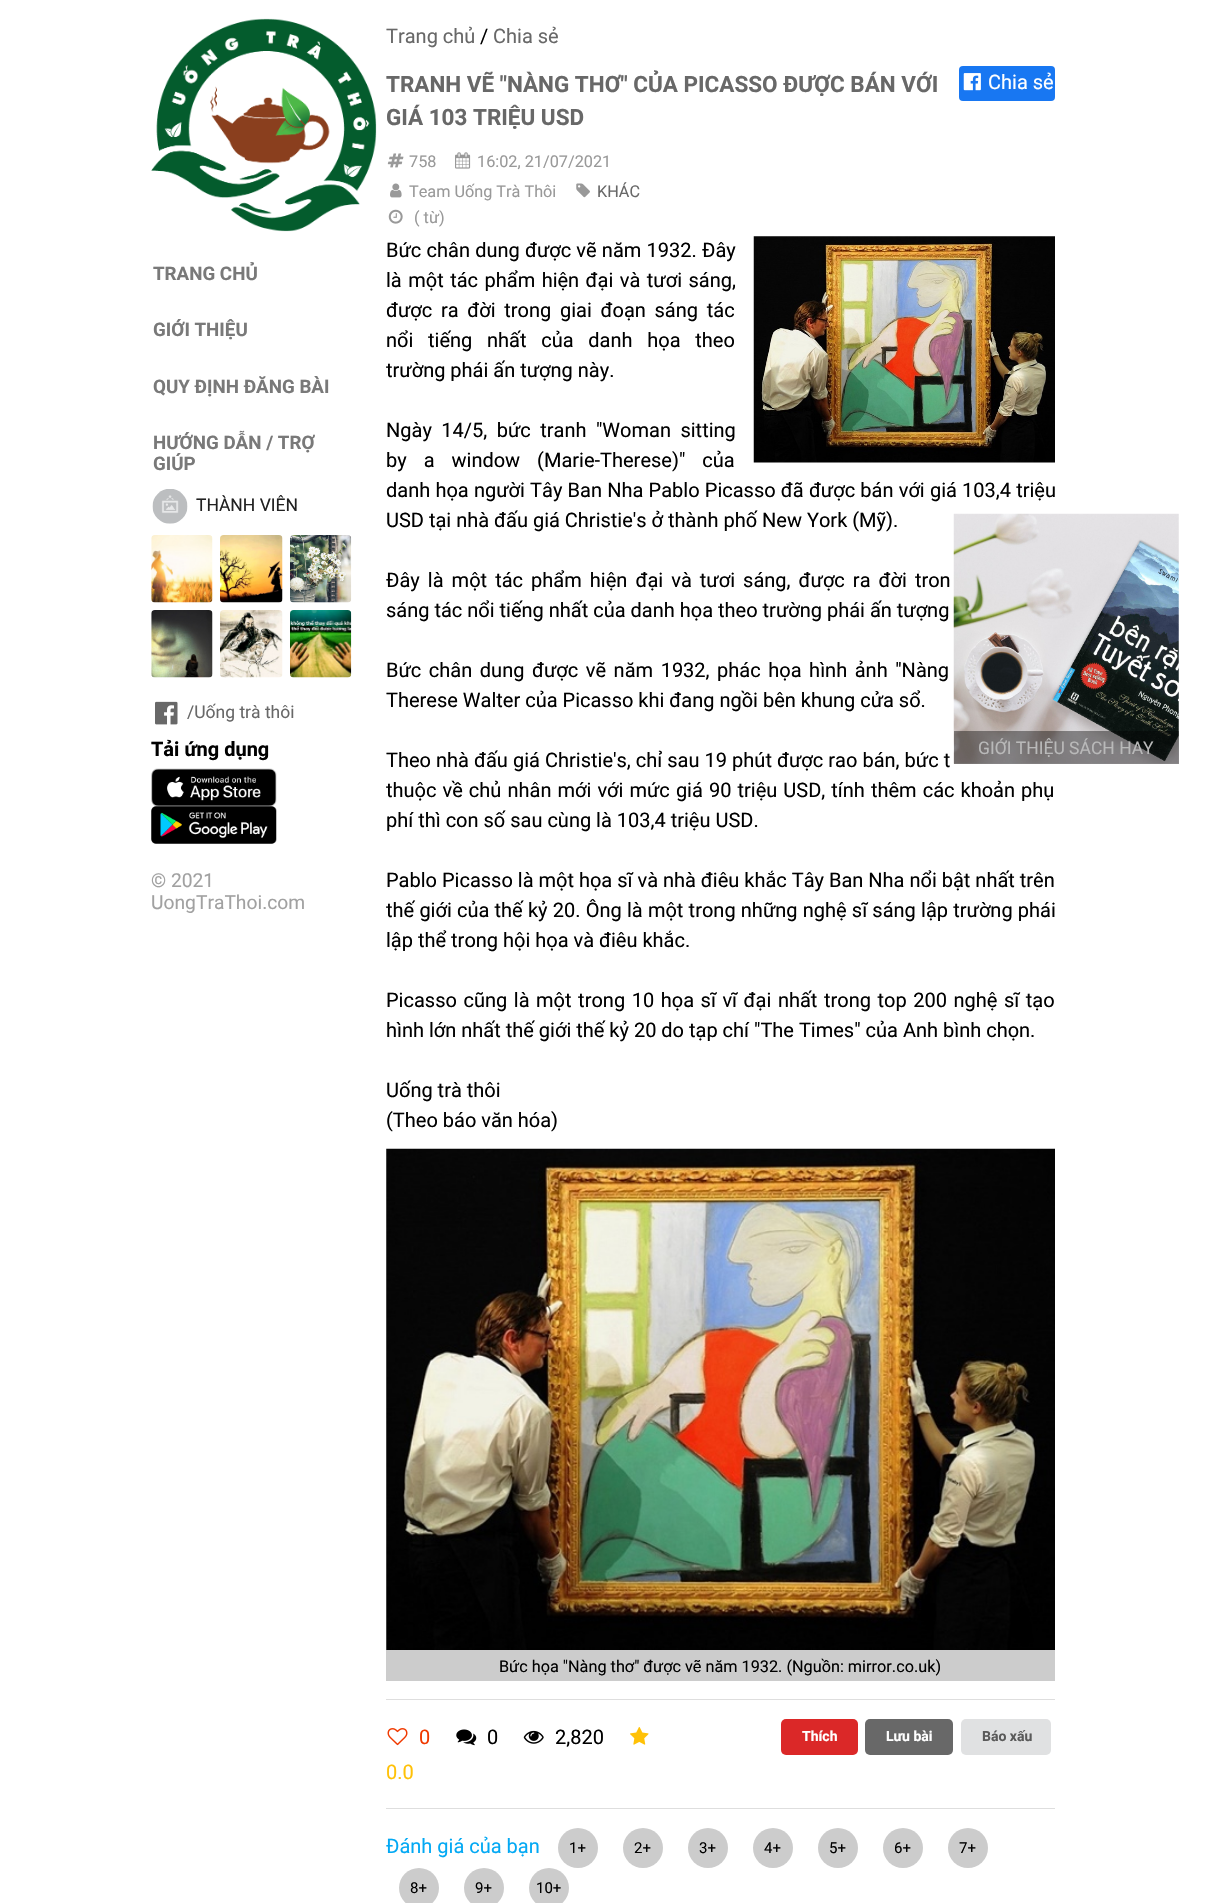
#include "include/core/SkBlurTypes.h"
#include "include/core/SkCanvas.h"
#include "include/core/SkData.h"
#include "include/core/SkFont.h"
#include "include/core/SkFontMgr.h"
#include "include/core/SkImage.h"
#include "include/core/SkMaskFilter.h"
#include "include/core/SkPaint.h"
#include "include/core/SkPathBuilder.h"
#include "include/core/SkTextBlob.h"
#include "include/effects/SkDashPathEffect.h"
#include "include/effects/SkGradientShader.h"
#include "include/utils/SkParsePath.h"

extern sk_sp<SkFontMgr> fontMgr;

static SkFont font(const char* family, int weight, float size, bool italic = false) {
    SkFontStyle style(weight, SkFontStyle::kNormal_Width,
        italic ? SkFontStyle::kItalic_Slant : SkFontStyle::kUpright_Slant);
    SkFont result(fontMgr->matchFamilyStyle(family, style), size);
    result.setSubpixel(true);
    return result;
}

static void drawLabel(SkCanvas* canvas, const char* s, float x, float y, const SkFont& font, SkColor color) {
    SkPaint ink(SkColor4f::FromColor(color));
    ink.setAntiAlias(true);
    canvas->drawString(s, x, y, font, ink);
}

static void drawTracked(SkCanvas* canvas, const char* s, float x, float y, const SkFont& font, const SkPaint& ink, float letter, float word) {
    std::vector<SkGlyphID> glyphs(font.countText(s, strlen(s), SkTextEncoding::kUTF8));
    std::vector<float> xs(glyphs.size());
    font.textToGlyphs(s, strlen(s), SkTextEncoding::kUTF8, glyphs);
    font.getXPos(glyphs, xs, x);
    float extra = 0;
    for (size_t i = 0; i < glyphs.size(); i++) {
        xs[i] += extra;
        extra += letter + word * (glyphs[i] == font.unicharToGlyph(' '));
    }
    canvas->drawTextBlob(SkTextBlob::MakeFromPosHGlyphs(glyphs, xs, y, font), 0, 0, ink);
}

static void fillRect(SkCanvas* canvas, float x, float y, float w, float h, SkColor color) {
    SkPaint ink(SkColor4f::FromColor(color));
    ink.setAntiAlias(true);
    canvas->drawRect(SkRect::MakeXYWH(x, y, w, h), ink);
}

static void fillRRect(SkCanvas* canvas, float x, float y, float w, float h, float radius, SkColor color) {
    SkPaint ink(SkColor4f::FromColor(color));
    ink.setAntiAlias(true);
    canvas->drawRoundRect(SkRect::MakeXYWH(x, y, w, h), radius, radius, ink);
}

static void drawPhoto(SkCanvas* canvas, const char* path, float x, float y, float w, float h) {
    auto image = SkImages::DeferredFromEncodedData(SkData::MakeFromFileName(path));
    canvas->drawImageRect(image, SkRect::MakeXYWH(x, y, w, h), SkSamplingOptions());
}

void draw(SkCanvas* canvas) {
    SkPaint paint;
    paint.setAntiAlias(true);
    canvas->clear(0xFFFFFFFF);
    drawPhoto(canvas, "assets/img1.png", 151, 18, 226, 214);
    SkFont font1 = font("Roboto", 700, 18.75f);
    drawLabel(canvas, "TRANG CHỦ", 153, 280, font1, 0xFF797979);
    drawLabel(canvas, "GIỚI THIỆU", 153, 336, font1, 0xFF797979);
    drawLabel(canvas, "QUY ĐỊNH ĐĂNG BÀI", 153, 393, font1, 0xFF797979);
    drawLabel(canvas, "HƯỚNG DẪN / TRỢ", 153, 449, font1, 0xFF797979);
    drawLabel(canvas, "GIÚP", 153, 470, font1, 0xFF797979);
    drawPhoto(canvas, "assets/img2.png", 152, 489, 36, 35);
    SkFont font2 = font("Roboto", 400, 17.5f);
    drawLabel(canvas, "THÀNH VIÊN", 196, 511, font2, 0xFF212121);
    drawPhoto(canvas, "assets/img3.png", 151, 535, 62, 68);
    drawPhoto(canvas, "assets/img4.png", 220, 535, 63, 68);
    drawPhoto(canvas, "assets/img5.png", 290, 535, 62, 68);
    drawPhoto(canvas, "assets/img6.png", 151, 610, 62, 68);
    drawPhoto(canvas, "assets/img7.png", 220, 610, 63, 68);
    drawPhoto(canvas, "assets/img8.png", 290, 610, 62, 68);
    drawPhoto(canvas, "assets/img9.png", 155, 701, 23, 24);
    drawLabel(canvas, "/Uống trà thôi", 187, 718, font2, 0xFF686868);
    SkFont font3 = font("Roboto", 700, 20);
    drawLabel(canvas, "Tải ứng dụng", 151, 756, font3, 0xFF000000);
    drawPhoto(canvas, "assets/img10.png", 151, 768, 126, 39);
    drawPhoto(canvas, "assets/img11.png", 151, 806, 126, 38);
    SkFont font4 = font("Roboto", 400, 19.25f);
    drawLabel(canvas, "© 2021", 151, 887, font4, 0xFFA1A1A1);
    drawLabel(canvas, "UongTraThoi.com", 151, 909, font4, 0xFFA1A1A1);
    SkFont font5 = font("Roboto", 400, 20);
    drawLabel(canvas, "Trang chủ", 386, 43, font5, 0xFF686868);
    drawLabel(canvas, "/", 480, 43, font5, 0xFF000000);
    drawLabel(canvas, "Chia sẻ", 493, 43, font5, 0xFF686868);
    SkFont font6 = font("Roboto", 700, 22.5f);
    drawLabel(canvas, "TRANH VẼ \"NÀNG THƠ\" CỦA PICASSO ĐƯỢC BÁN VỚI", 386, 92, font6, 0xFF686868);
    drawLabel(canvas, "GIÁ 103 TRIỆU USD", 386, 125, font6, 0xFF686868);
    fillRRect(canvas, 959, 66, 96, 35, 4, 0xFF1877F2);
    drawPhoto(canvas, "assets/img12.png", 963, 73, 18, 18);
    drawLabel(canvas, "Chia sẻ", 988, 89, font5, 0xFFFFFFFF);
    drawPhoto(canvas, "assets/img13.png", 387, 153, 17, 15);
    SkFont font7 = font("Roboto", 400, 16.25f);
    drawLabel(canvas, "758", 409, 167, font7, 0xFF999999);
    drawPhoto(canvas, "assets/img14.png", 455, 152, 16, 17);
    drawLabel(canvas, "16:02, 21/07/2021", 477, 167, font7, 0xFF999999);
    drawPhoto(canvas, "assets/img15.png", 390, 183, 12, 15);
    drawLabel(canvas, "Team Uống Trà Thôi", 409, 197, font7, 0xFF999999);
    drawPhoto(canvas, "assets/img16.png", 576, 183, 14, 15);
    drawLabel(canvas, "KHÁC", 597, 197, font7, 0xFF686868);
    drawPhoto(canvas, "assets/img17.png", 388, 209, 15, 15);
    drawLabel(canvas, "( từ)", 414, 223, font7, 0xFF999999);
    paint.setColor(0xFF000000);
    drawTracked(canvas, "Bức chân dung được vẽ năm 1932. Đây", 386, 257, font5, paint, 0, 0.25f);
    drawPhoto(canvas, "assets/img18.png", 753, 236, 302, 227);
    drawTracked(canvas, "là một tác phẩm hiện đại và tươi sáng,", 386, 287, font5, paint, 0, 1.5f);
    drawTracked(canvas, "được ra đời trong giai đoạn sáng tác", 386, 317, font5, paint, 0, 3.75f);
    drawTracked(canvas, "nổi tiếng nhất của danh họa theo", 386, 347, font5, paint, 0, 9.75f);
    drawLabel(canvas, "trường phái ấn tượng này.", 386, 377, font5, 0xFF000000);
    drawTracked(canvas, "Ngày 14/5, bức tranh \"Woman sitting", 386, 437, font5, paint, 0, 4.5f);
    drawTracked(canvas, "by a window (Marie-Therese)\" của", 386, 467, font5, paint, 0, 12);
    drawTracked(canvas, "danh họa người Tây Ban Nha Pablo Picasso đã được bán với giá 103,4 triệu", 386, 497, font5, paint, 0, 0.25f);
    drawLabel(canvas, "USD tại nhà đấu giá Christie's ở thành phố New York (Mỹ).", 386, 527, font5, 0xFF000000);
    drawTracked(canvas, "Đây là một tác phẩm hiện đại và tươi sáng, được ra đời tron", 386, 587, font5, paint, 0, 3.1f);
    drawLabel(canvas, "sáng tác nổi tiếng nhất của danh họa theo trường phái ấn tượng", 386, 617, font5, 0xFF000000);
    drawTracked(canvas, "Bức chân dung được vẽ năm 1932, phác họa hình ảnh \"Nàng", 386, 677, font5, paint, 0, 2.6f);
    drawLabel(canvas, "Therese Walter của Picasso khi đang ngồi bên khung cửa sổ.", 386, 707, font5, 0xFF000000);
    drawTracked(canvas, "Theo nhà đấu giá Christie's, chỉ sau 19 phút được rao bán, bức t", 386, 767, font5, paint, 0, 0.1f);
    drawTracked(canvas, "thuộc về chủ nhân mới với mức giá 90 triệu USD, tính thêm các khoản phụ", 386, 797, font5, paint, 0, 1.1f);
    drawLabel(canvas, "phí thì con số sau cùng là 103,4 triệu USD.", 386, 827, font5, 0xFF000000);
    drawLabel(canvas, "Pablo Picasso là một họa sĩ và nhà điêu khắc Tây Ban Nha nổi bật nhất trên", 386, 887, font5, 0xFF000000);
    drawTracked(canvas, "thế giới của thế kỷ 20. Ông là một trong những nghệ sĩ sáng lập trường phái", 386, 917, font5, paint, 0, 0.25f);
    drawLabel(canvas, "lập thể trong hội họa và điêu khắc.", 386, 947, font5, 0xFF000000);
    drawTracked(canvas, "Picasso cũng là một trong 10 họa sĩ vĩ đại nhất trong top 200 nghệ sĩ tạo", 386, 1007, font5, paint, 0, 1.6f);
    drawLabel(canvas, "hình lớn nhất thế giới thế kỷ 20 do tạp chí \"The Times\" của Anh bình chọn.", 386, 1037, font5, 0xFF000000);
    drawLabel(canvas, "Uống trà thôi", 386, 1097, font5, 0xFF000000);
    drawLabel(canvas, "(Theo báo văn hóa)", 386, 1127, font5, 0xFF000000);
    drawPhoto(canvas, "assets/img19.png", 386, 1148, 669, 502);
    fillRect(canvas, 386, 1650, 669, 31, 0xFFCCCCCC);
    drawLabel(canvas, "Bức họa \"Nàng thơ\" được vẽ năm 1932. (Nguồn: mirror.co.uk)", 499, 1672, font7, 0xFF000000);
    fillRect(canvas, 386, 1699, 669, 1, 0xFFDEDEDE);
    drawPhoto(canvas, "assets/img20.png", 387, 1728, 21, 18);
    drawLabel(canvas, "0", 419, 1744, font5, 0xFFF03900);
    drawPhoto(canvas, "assets/img21.png", 456, 1729, 21, 17);
    drawLabel(canvas, "0", 487, 1744, font5, 0xFF000000);
    drawPhoto(canvas, "assets/img22.png", 523, 1730, 21, 14);
    drawLabel(canvas, "2,820", 555, 1744, font5, 0xFF000000);
    drawPhoto(canvas, "assets/img23.png", 630, 1727, 19, 18);
    drawLabel(canvas, "0.0", 386, 1779, font5, 0xFFFFC107);
    fillRRect(canvas, 781, 1719, 77, 36, 5, 0xFFDB2828);
    SkFont font8 = font("Roboto", 700, 14);
    drawLabel(canvas, "Thích", 802, 1741, font8, 0xFFFFFFFF);
    fillRRect(canvas, 865, 1719, 88, 36, 5, 0xFF686868);
    drawLabel(canvas, "Lưu bài", 886, 1741, font8, 0xFFFFFFFF);
    fillRRect(canvas, 961, 1719, 90, 36, 5, 0xFFE0E1E2);
    drawLabel(canvas, "Báo xấu", 982, 1741, font8, 0xFF5A5A5A);
    fillRect(canvas, 386, 1808, 669, 1, 0xFFDEDEDE);
    drawLabel(canvas, "Đánh giá của bạn", 386, 1853, font5, 0xFF03A9F4);
    paint.setColor(0xFFCCCCCC);
    canvas->drawCircle(578, 1848, 20, paint);
    SkFont font9 = font("Roboto", 400, 15);
    drawLabel(canvas, "1+", 569, 1853, font9, 0xFF000000);
    canvas->drawCircle(643, 1848, 20, paint);
    drawLabel(canvas, "2+", 634, 1853, font9, 0xFF000000);
    canvas->drawCircle(708, 1848, 20, paint);
    drawLabel(canvas, "3+", 699, 1853, font9, 0xFF000000);
    canvas->drawCircle(773, 1848, 20, paint);
    drawLabel(canvas, "4+", 764, 1853, font9, 0xFF000000);
    canvas->drawCircle(838, 1848, 20, paint);
    drawLabel(canvas, "5+", 829, 1853, font9, 0xFF000000);
    canvas->drawCircle(903, 1848, 20, paint);
    drawLabel(canvas, "6+", 894, 1853, font9, 0xFF000000);
    canvas->drawCircle(968, 1848, 20, paint);
    drawLabel(canvas, "7+", 959, 1853, font9, 0xFF000000);
    canvas->drawCircle(419, 1888, 20, paint);
    drawLabel(canvas, "8+", 410, 1893, font9, 0xFF000000);
    canvas->drawCircle(484, 1888, 20, paint);
    drawLabel(canvas, "9+", 475, 1893, font9, 0xFF000000);
    canvas->drawCircle(549, 1888, 20, paint);
    drawLabel(canvas, "10+", 536, 1893, font9, 0xFF000000);
    drawPhoto(canvas, "assets/img24.png", 953, 513, 226, 251);
    fillRect(canvas, 954, 731, 225, 33, 0x66000000);
    drawLabel(canvas, "GIỚI THIỆU SÁCH HAY", 978, 754, font2, 0xFFB9B9B9);
}
